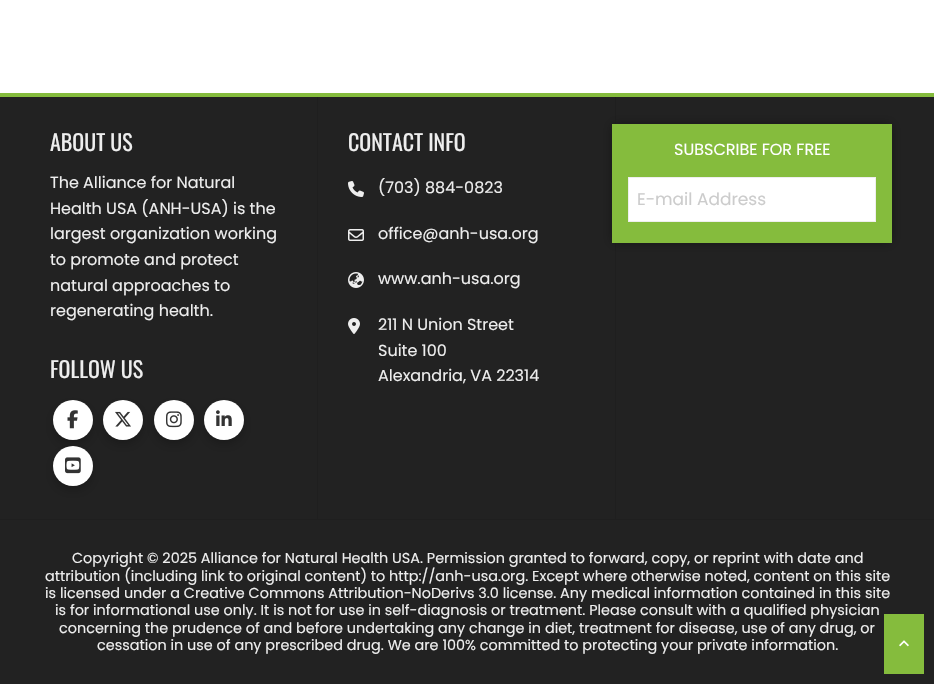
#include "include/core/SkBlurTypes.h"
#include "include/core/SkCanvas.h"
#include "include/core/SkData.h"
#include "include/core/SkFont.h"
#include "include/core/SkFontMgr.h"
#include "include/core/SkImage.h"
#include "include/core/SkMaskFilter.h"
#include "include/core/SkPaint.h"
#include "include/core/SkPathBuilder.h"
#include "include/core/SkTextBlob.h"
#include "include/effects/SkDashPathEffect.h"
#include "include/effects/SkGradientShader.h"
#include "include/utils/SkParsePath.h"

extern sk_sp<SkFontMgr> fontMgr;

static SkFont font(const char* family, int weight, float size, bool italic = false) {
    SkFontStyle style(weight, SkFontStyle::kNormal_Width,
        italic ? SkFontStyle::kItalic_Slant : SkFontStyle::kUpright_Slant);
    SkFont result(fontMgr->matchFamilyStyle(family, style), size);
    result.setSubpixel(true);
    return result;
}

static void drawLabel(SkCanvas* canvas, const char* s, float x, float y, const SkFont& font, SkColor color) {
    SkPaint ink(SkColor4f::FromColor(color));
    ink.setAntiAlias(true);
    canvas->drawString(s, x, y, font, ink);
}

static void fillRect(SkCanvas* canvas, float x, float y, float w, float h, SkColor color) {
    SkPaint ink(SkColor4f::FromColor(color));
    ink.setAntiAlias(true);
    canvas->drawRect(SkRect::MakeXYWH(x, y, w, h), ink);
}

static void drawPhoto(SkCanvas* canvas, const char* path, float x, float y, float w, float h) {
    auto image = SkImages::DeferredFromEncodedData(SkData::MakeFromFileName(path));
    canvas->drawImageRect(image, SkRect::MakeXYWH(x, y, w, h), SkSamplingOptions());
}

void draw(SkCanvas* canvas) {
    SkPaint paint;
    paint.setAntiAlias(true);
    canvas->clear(0xFFFFFFFF);
    fillRect(canvas, 0, 97, 934, 587, 0xFF222222);
    fillRect(canvas, 0, 93, 934, 4, 0xFF85BC3D);
    fillRect(canvas, 0, 519, 934, 1, 0xFF1F1F1F);
    fillRect(canvas, 317, 97, 1, 422, 0xFF1F1F1F);
    SkFont font1 = font("Oswald", 400, 22);
    drawLabel(canvas, "ABOUT US", 50, 151, font1, 0xFFEEEEEE);
    SkFont font2 = font("Poppins", 400, 16);
    drawLabel(canvas, "The Alliance for Natural", 50, 188, font2, 0xFFEEEEEE);
    drawLabel(canvas, "Health USA (ANH-USA) is the", 50, 214, font2, 0xFFEEEEEE);
    drawLabel(canvas, "largest organization working", 50, 239, font2, 0xFFEEEEEE);
    drawLabel(canvas, "to promote and protect", 50, 265, font2, 0xFFEEEEEE);
    drawLabel(canvas, "natural approaches to", 50, 291, font2, 0xFFEEEEEE);
    drawLabel(canvas, "regenerating health.", 50, 316, font2, 0xFFEEEEEE);
    drawLabel(canvas, "FOLLOW US", 50, 378, font1, 0xFFEEEEEE);
    paint.setColor(0x80000000);
    paint.setMaskFilter(SkMaskFilter::MakeBlur(kNormal_SkBlurStyle, 7.5f));
    canvas->drawRoundRect(SkRect::MakeXYWH(58, 410, 30, 30), 15, 15, paint);
    paint.setMaskFilter(nullptr);
    paint.setColor(0xFFFFFFFF);
    canvas->drawCircle(73, 420, 20, paint);
    drawPhoto(canvas, "assets/img1.png", 67, 410, 11, 19);
    paint.setColor(0x80000000);
    paint.setMaskFilter(SkMaskFilter::MakeBlur(kNormal_SkBlurStyle, 7.5f));
    canvas->drawRoundRect(SkRect::MakeXYWH(108, 410, 30, 30), 15, 15, paint);
    paint.setMaskFilter(nullptr);
    paint.setColor(0xFFFFFFFF);
    canvas->drawCircle(123, 420, 20, paint);
    drawPhoto(canvas, "assets/img2.png", 115, 411, 16, 16);
    paint.setColor(0x80000000);
    paint.setMaskFilter(SkMaskFilter::MakeBlur(kNormal_SkBlurStyle, 7.5f));
    canvas->drawRoundRect(SkRect::MakeXYWH(159, 410, 30, 30), 15, 15, paint);
    paint.setMaskFilter(nullptr);
    paint.setColor(0xFFFFFFFF);
    canvas->drawCircle(174, 420, 20, paint);
    drawPhoto(canvas, "assets/img3.png", 166, 411, 16, 17);
    paint.setColor(0x80000000);
    paint.setMaskFilter(SkMaskFilter::MakeBlur(kNormal_SkBlurStyle, 7.5f));
    canvas->drawRoundRect(SkRect::MakeXYWH(209, 410, 30, 30), 15, 15, paint);
    paint.setMaskFilter(nullptr);
    paint.setColor(0xFFFFFFFF);
    canvas->drawCircle(224, 420, 20, paint);
    drawPhoto(canvas, "assets/img4.png", 216, 410, 16, 16);
    paint.setColor(0x80000000);
    paint.setMaskFilter(SkMaskFilter::MakeBlur(kNormal_SkBlurStyle, 7.5f));
    canvas->drawRoundRect(SkRect::MakeXYWH(58, 456, 30, 30), 15, 15, paint);
    paint.setMaskFilter(nullptr);
    paint.setColor(0xFFFFFFFF);
    canvas->drawCircle(73, 466, 20, paint);
    drawPhoto(canvas, "assets/img5.png", 65, 457, 16, 17);
    fillRect(canvas, 615, 97, 1, 422, 0xFF1F1F1F);
    drawLabel(canvas, "CONTACT INFO", 348, 151, font1, 0xFFEEEEEE);
    drawPhoto(canvas, "assets/img6.png", 348, 181, 16, 16);
    drawLabel(canvas, "(703) 884-0823", 378, 193, font2, 0xFFEEEEEE);
    drawPhoto(canvas, "assets/img7.png", 348, 229, 16, 12);
    drawLabel(canvas, "office@anh-usa.org", 378, 239, font2, 0xFFEEEEEE);
    drawPhoto(canvas, "assets/img8.png", 348, 272, 16, 16);
    drawLabel(canvas, "www.anh-usa.org", 378, 284, font2, 0xFFEEEEEE);
    drawPhoto(canvas, "assets/img9.png", 348, 318, 12, 16);
    drawLabel(canvas, "211 N Union Street", 378, 330, font2, 0xFFEEEEEE);
    drawLabel(canvas, "Suite 100", 378, 356, font2, 0xFFEEEEEE);
    drawLabel(canvas, "Alexandria, VA 22314", 378, 381, font2, 0xFFEEEEEE);
    paint.setColor(0x66000000);
    paint.setMaskFilter(SkMaskFilter::MakeBlur(kNormal_SkBlurStyle, 5.5f));
    canvas->drawRect(SkRect::MakeXYWH(613, 125, 278, 117), paint);
    paint.setMaskFilter(nullptr);
    fillRect(canvas, 612, 124, 280, 119, 0xFF85BC3D);
    drawLabel(canvas, "SUBSCRIBE FOR FREE", 674, 155, font2, 0xFFFFFFFF);
    paint.setColor(0xFFFFFFFF);
    canvas->drawRect(SkRect::MakeXYWH(628.5f, 177.5f, 247, 44), paint);
    paint.setStroke(true);
    paint.setStrokeWidth(1);
    paint.setColor(0xFFEEEEEE);
    canvas->drawRect(SkRect::MakeXYWH(628.5f, 177.5f, 247, 44), paint);
    SkFont font3 = font("Poppins", 400, 17);
    drawLabel(canvas, "E-mail Address", 637, 205, font3, 0xFFCCCCCC);
    SkFont font4 = font("Poppins", 400, 14.4f);
    drawLabel(canvas, "Copyright © 2025 Alliance for Natural Health USA. Permission granted to forward, copy, or reprint with date and", 72, 563, font4, 0xFFEEEEEE);
    drawLabel(canvas, "attribution (including link to original content) to http://anh-usa.org. Except where otherwise noted, content on this site", 45, 581, font4, 0xFFEEEEEE);
    drawLabel(canvas, "is licensed under a Creative Commons Attribution-NoDerivs 3.0 license. Any medical information contained in this site", 45, 598, font4, 0xFFEEEEEE);
    drawLabel(canvas, "is for informational use only. It is not for use in self-diagnosis or treatment. Please consult with a qualified physician", 55, 615, font4, 0xFFEEEEEE);
    drawLabel(canvas, "concerning the prudence of and before undertaking any change in diet, treatment for disease, use of any drug, or", 59, 633, font4, 0xFFEEEEEE);
    drawLabel(canvas, "cessation in use of any prescribed drug. We are 100% committed to protecting your private information.", 97, 650, font4, 0xFFEEEEEE);
    fillRect(canvas, 884, 614, 40, 60, 0xFF85BC3D);
    drawPhoto(canvas, "assets/img10.png", 899, 640, 10, 7);
}
